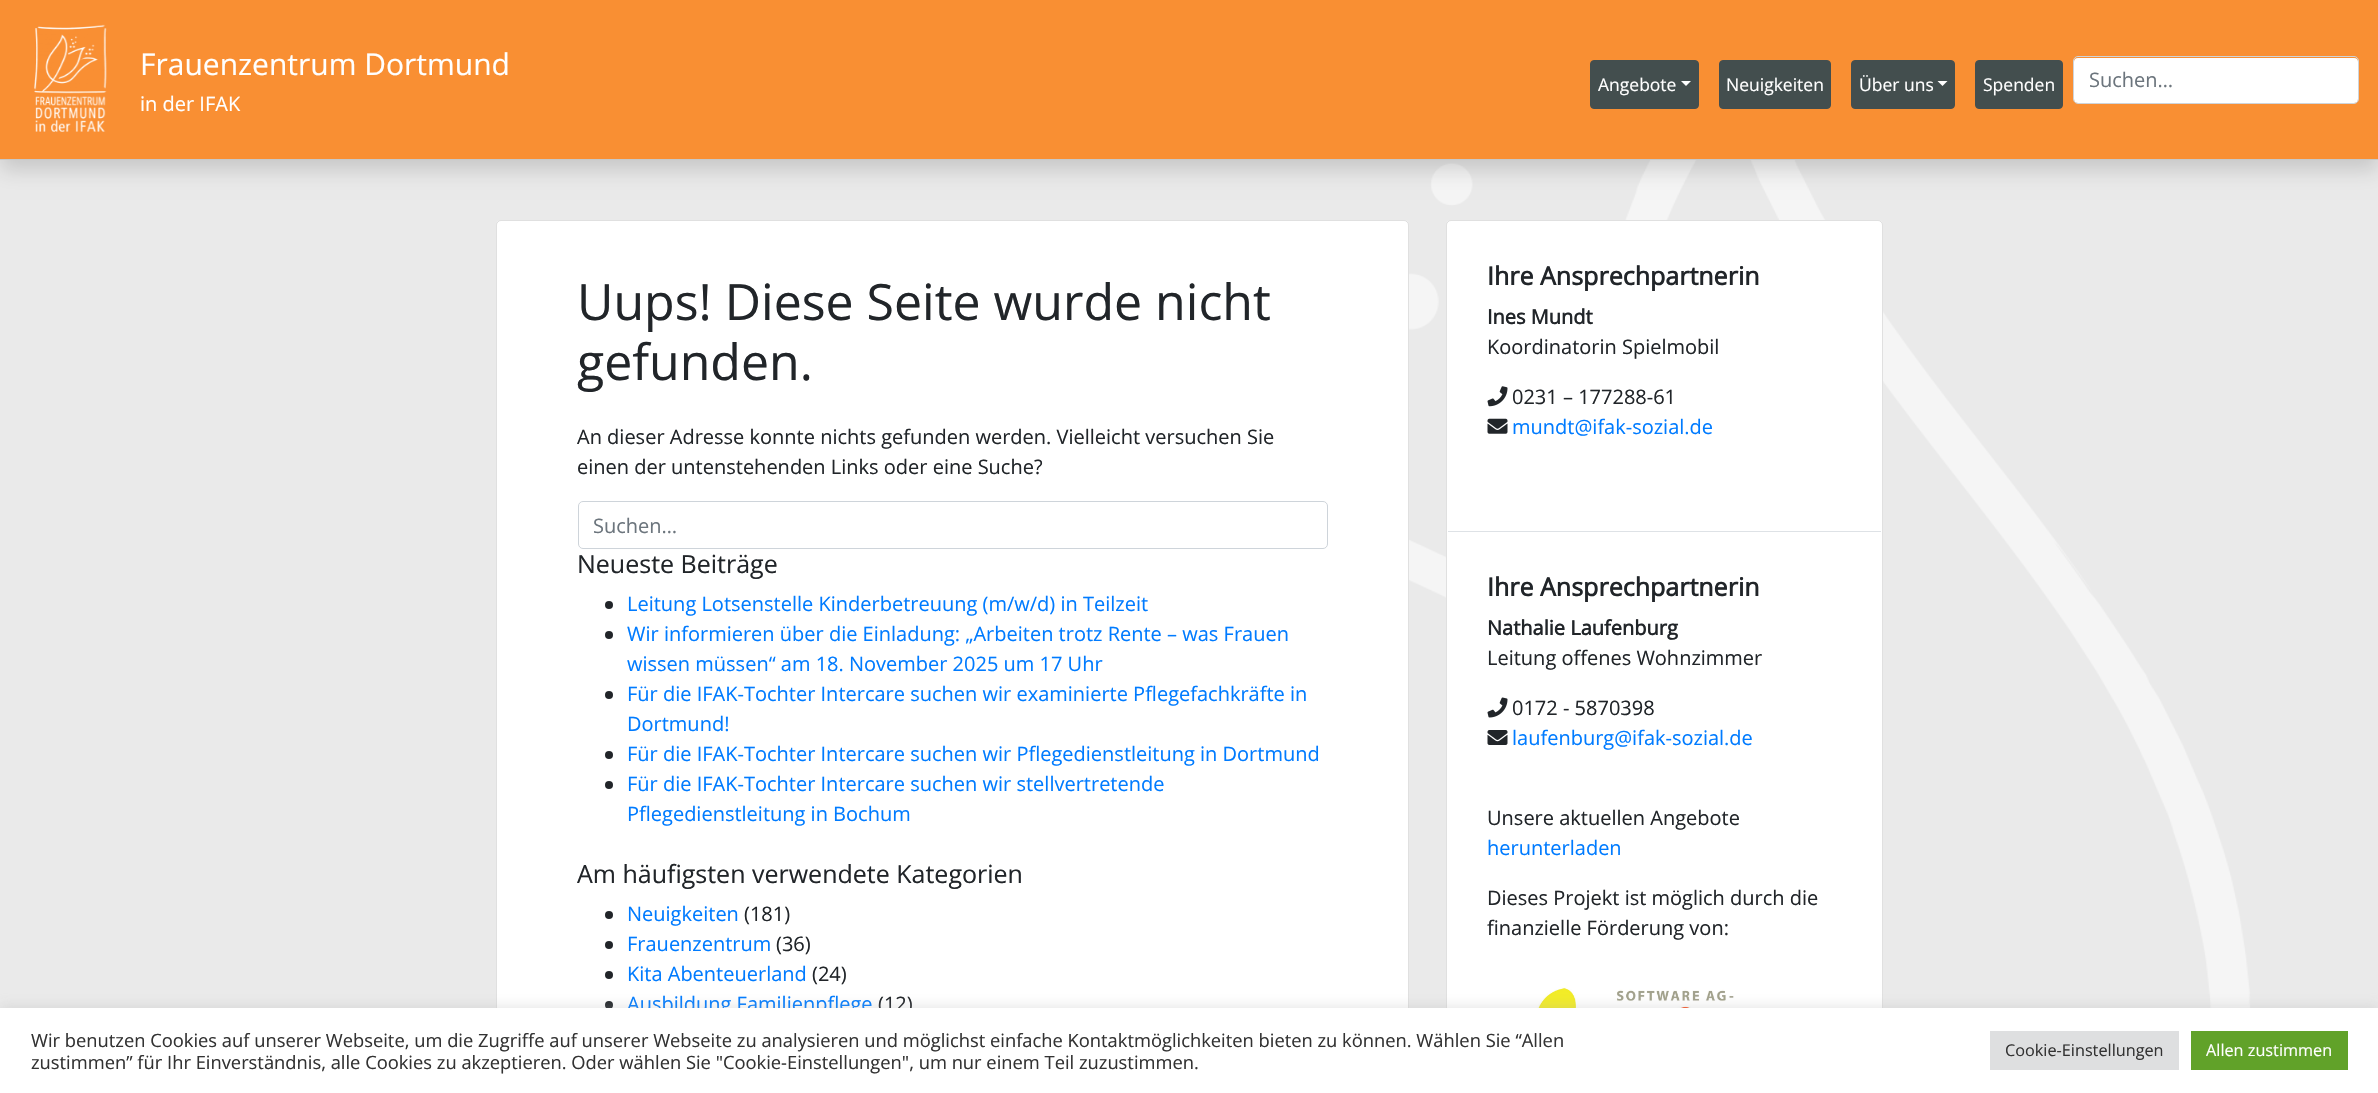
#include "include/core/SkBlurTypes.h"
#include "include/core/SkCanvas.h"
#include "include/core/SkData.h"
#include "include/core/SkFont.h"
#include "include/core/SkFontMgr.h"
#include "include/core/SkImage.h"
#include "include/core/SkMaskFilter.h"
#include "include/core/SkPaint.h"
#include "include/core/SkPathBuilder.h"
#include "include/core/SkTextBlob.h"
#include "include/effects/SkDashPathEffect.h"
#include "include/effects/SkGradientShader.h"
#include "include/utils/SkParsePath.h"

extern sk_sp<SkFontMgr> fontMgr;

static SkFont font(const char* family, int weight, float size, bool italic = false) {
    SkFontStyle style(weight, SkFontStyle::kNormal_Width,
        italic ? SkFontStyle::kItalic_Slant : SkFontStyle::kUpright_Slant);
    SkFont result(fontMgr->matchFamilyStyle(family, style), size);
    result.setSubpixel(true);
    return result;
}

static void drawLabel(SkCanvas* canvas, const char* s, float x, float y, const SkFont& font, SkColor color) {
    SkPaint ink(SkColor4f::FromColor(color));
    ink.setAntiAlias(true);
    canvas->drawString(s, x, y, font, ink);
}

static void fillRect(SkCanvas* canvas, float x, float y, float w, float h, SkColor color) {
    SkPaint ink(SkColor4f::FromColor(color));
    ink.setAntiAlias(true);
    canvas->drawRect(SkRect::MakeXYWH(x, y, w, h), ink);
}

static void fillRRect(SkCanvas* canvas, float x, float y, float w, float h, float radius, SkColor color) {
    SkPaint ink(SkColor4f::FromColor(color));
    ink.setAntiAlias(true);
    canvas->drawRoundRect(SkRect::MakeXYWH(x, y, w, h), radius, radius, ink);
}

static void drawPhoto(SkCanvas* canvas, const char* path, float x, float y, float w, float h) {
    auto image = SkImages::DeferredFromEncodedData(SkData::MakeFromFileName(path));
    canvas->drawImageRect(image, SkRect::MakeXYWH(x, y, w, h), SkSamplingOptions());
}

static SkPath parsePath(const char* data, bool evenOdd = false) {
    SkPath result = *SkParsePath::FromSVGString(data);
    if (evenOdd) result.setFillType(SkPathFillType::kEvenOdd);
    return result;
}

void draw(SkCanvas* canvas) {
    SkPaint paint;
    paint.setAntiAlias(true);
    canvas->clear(0xFFEAEAEA);
    drawPhoto(canvas, "assets/img2.png", 1409, 160, 842, 848);
    paint.setColor(0x26000000);
    paint.setMaskFilter(SkMaskFilter::MakeBlur(kNormal_SkBlurStyle, 10));
    canvas->drawRect(SkRect::MakeXYWH(0, 10, 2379, 160), paint);
    paint.setMaskFilter(nullptr);
    fillRect(canvas, 0, 159, 2378, 1, 0xFFC8C8C8);
    fillRect(canvas, 0, 0, 2378, 159, 0xFFF98F33);
    drawPhoto(canvas, "assets/img1.png", 34, 24, 73, 108);
    SkFont font1 = font("Open Sans", 400, 30);
    drawLabel(canvas, "Frauenzentrum Dortmund", 140, 75, font1, 0xFFFFFFFF);
    SkFont font2 = font("Open Sans", 400, 20);
    drawLabel(canvas, "in der IFAK", 140, 111, font2, 0xFFFFFFFF);
    paint.setColor(0xFF434E4E);
    canvas->drawRoundRect(SkRect::MakeXYWH(1590.5f, 60.5f, 108, 48), 3.5f, 3.5f, paint);
    paint.setStroke(true);
    paint.setStrokeWidth(1);
    canvas->drawRoundRect(SkRect::MakeXYWH(1590.5f, 60.5f, 108, 48), 3.5f, 3.5f, paint);
    SkFont font3 = font("Open Sans", 400, 17.5f);
    drawLabel(canvas, "Angebote", 1598, 91, font3, 0xFFFFFFFF);
    paint.setStroke(false);
    paint.setColor(0xFFFFFFFF);
    canvas->drawPath(parsePath("M1681 81H1691L1686 86Z"), paint);
    paint.setColor(0xFF434E4E);
    canvas->drawRoundRect(SkRect::MakeXYWH(1719.5f, 60.5f, 111, 48), 3.5f, 3.5f, paint);
    paint.setStroke(true);
    canvas->drawRoundRect(SkRect::MakeXYWH(1719.5f, 60.5f, 111, 48), 3.5f, 3.5f, paint);
    drawLabel(canvas, "Neuigkeiten", 1726, 91, font3, 0xFFFFFFFF);
    paint.setStroke(false);
    canvas->drawRoundRect(SkRect::MakeXYWH(1851.5f, 60.5f, 103, 48), 3.5f, 3.5f, paint);
    paint.setStroke(true);
    canvas->drawRoundRect(SkRect::MakeXYWH(1851.5f, 60.5f, 103, 48), 3.5f, 3.5f, paint);
    drawLabel(canvas, "Über uns", 1859, 91, font3, 0xFFFFFFFF);
    paint.setStroke(false);
    paint.setColor(0xFFFFFFFF);
    canvas->drawPath(parsePath("M1937.5 81H1947.5L1942.5 86Z"), paint);
    paint.setColor(0xFF434E4E);
    canvas->drawRoundRect(SkRect::MakeXYWH(1975.5f, 60.5f, 87, 48), 3.5f, 3.5f, paint);
    paint.setStroke(true);
    canvas->drawRoundRect(SkRect::MakeXYWH(1975.5f, 60.5f, 87, 48), 3.5f, 3.5f, paint);
    drawLabel(canvas, "Spenden", 1983, 91, font3, 0xFFFFFFFF);
    fillRRect(canvas, 2074, 58, 284, 45, 4, 0xFFFFFFFF);
    paint.setColor(0xFFCED4DA);
    canvas->drawRoundRect(SkRect::MakeXYWH(2073.5f, 56.5f, 285, 47), 4.5f, 4.5f, paint);
    drawLabel(canvas, "Suchen…", 2089, 87, font2, 0xFF6C757D);
    fillRRect(canvas, 496, 220, 913, 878, 5, 0xFFFFFFFF);
    paint.setColor(0x1F000000);
    canvas->drawRoundRect(SkRect::MakeXYWH(496.5f, 220.5f, 912, 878), 4.5f, 4.5f, paint);
    SkFont font4 = font("Open Sans", 400, 50);
    drawLabel(canvas, "Uups! Diese Seite wurde nicht", 577, 320, font4, 0xFF212529);
    drawLabel(canvas, "gefunden.", 577, 380, font4, 0xFF212529);
    drawLabel(canvas, "An dieser Adresse konnte nichts gefunden werden. Vielleicht versuchen Sie", 577, 444, font2, 0xFF212529);
    drawLabel(canvas, "einen der untenstehenden Links oder eine Suche?", 577, 474, font2, 0xFF212529);
    paint.setColor(0xFFCED4DA);
    canvas->drawRoundRect(SkRect::MakeXYWH(578.5f, 501.5f, 749, 47), 4.5f, 4.5f, paint);
    drawLabel(canvas, "Suchen…", 593, 533, font2, 0xFF6C757D);
    SkFont font5 = font("Open Sans", 400, 25);
    drawLabel(canvas, "Neueste Beiträge", 577, 573, font5, 0xFF212529);
    paint.setStroke(false);
    paint.setColor(0xFF212529);
    canvas->drawCircle(609, 605, 4, paint);
    drawLabel(canvas, "Leitung Lotsenstelle Kinderbetreuung (m/w/d) in Teilzeit", 627, 611, font2, 0xFF007BFF);
    canvas->drawCircle(609, 635, 4, paint);
    drawLabel(canvas, "Wir informieren über die Einladung: „Arbeiten trotz Rente – was Frauen", 627, 641, font2, 0xFF007BFF);
    drawLabel(canvas, "wissen müssen“ am 18. November 2025 um 17 Uhr", 627, 671, font2, 0xFF007BFF);
    canvas->drawCircle(609, 695, 4, paint);
    drawLabel(canvas, "Für die IFAK-Tochter Intercare suchen wir examinierte Pflegefachkräfte in", 627, 701, font2, 0xFF007BFF);
    drawLabel(canvas, "Dortmund!", 627, 731, font2, 0xFF007BFF);
    canvas->drawCircle(609, 755, 4, paint);
    drawLabel(canvas, "Für die IFAK-Tochter Intercare suchen wir Pflegedienstleitung in Dortmund", 627, 761, font2, 0xFF007BFF);
    canvas->drawCircle(609, 785, 4, paint);
    drawLabel(canvas, "Für die IFAK-Tochter Intercare suchen wir stellvertretende", 627, 791, font2, 0xFF007BFF);
    drawLabel(canvas, "Pflegedienstleitung in Bochum", 627, 821, font2, 0xFF007BFF);
    drawLabel(canvas, "Am häufigsten verwendete Kategorien", 577, 883, font5, 0xFF212529);
    canvas->drawCircle(609, 915, 4, paint);
    drawLabel(canvas, "Neuigkeiten", 627, 921, font2, 0xFF007BFF);
    drawLabel(canvas, "(181)", 744, 921, font2, 0xFF212529);
    canvas->drawCircle(609, 945, 4, paint);
    drawLabel(canvas, "Frauenzentrum", 627, 951, font2, 0xFF007BFF);
    drawLabel(canvas, "(36)", 776, 951, font2, 0xFF212529);
    canvas->drawCircle(609, 975, 4, paint);
    drawLabel(canvas, "Kita Abenteuerland", 627, 981, font2, 0xFF007BFF);
    drawLabel(canvas, "(24)", 812, 981, font2, 0xFF212529);
    canvas->drawCircle(609, 1005, 4, paint);
    drawLabel(canvas, "Ausbildung Familienpflege", 627, 1011, font2, 0xFF007BFF);
    drawLabel(canvas, "(12)", 878, 1011, font2, 0xFF212529);
    fillRRect(canvas, 1446, 220, 437, 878, 5, 0xFFFFFFFF);
    paint.setStroke(true);
    paint.setColor(0x1F000000);
    canvas->drawRoundRect(SkRect::MakeXYWH(1446.5f, 220.5f, 436, 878), 4.5f, 4.5f, paint);
    fillRect(canvas, 1448, 531, 433, 1, 0xFFDEE2E6);
    SkFont font6 = font("Open Sans", 700, 25);
    drawLabel(canvas, "Ihre Ansprechpartnerin", 1487, 285, font6, 0xFF212529);
    SkFont font7 = font("Open Sans", 700, 20);
    drawLabel(canvas, "Ines Mundt", 1487, 324, font7, 0xFF212529);
    drawLabel(canvas, "Koordinatorin Spielmobil", 1487, 354, font2, 0xFF212529);
    drawPhoto(canvas, "assets/img3.png", 1487, 386, 21, 21);
    drawLabel(canvas, "0231 – 177288-61", 1512, 404, font2, 0xFF212529);
    drawPhoto(canvas, "assets/img4.png", 1487, 418, 21, 16);
    drawLabel(canvas, "mundt@ifak-sozial.de", 1512, 434, font2, 0xFF007BFF);
    drawLabel(canvas, "Ihre Ansprechpartnerin", 1487, 596, font6, 0xFF212529);
    drawLabel(canvas, "Nathalie Laufenburg", 1487, 635, font7, 0xFF212529);
    drawLabel(canvas, "Leitung offenes Wohnzimmer", 1487, 665, font2, 0xFF212529);
    drawPhoto(canvas, "assets/img5.png", 1487, 697, 21, 21);
    drawLabel(canvas, "0172 - 5870398", 1512, 715, font2, 0xFF212529);
    drawPhoto(canvas, "assets/img6.png", 1487, 730, 21, 15);
    drawLabel(canvas, "laufenburg@ifak-sozial.de", 1512, 745, font2, 0xFF007BFF);
    drawLabel(canvas, "Unsere aktuellen Angebote", 1487, 825, font2, 0xFF212529);
    drawLabel(canvas, "herunterladen", 1487, 855, font2, 0xFF007BFF);
    drawLabel(canvas, "Dieses Projekt ist möglich durch die", 1487, 905, font2, 0xFF212529);
    drawLabel(canvas, "finanzielle Förderung von:", 1487, 935, font2, 0xFF212529);
    drawPhoto(canvas, "assets/img7.png", 1535, 987, 258, 21);
    paint.setStroke(false);
    paint.setColor(0x4DACABAB);
    paint.setMaskFilter(SkMaskFilter::MakeBlur(kNormal_SkBlurStyle, 6));
    canvas->drawRect(SkRect::MakeXYWH(0, 1006, 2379, 87), paint);
    paint.setMaskFilter(nullptr);
    fillRect(canvas, 0, 1008, 2378, 85, 0xFFFFFFFF);
    SkFont font8 = font("Open Sans", 400, 18.33f);
    drawLabel(canvas, "Wir benutzen Cookies auf unserer Webseite, um die Zugriffe auf unserer Webseite zu analysieren und möglichst einfache Kontaktmöglichkeiten bieten zu können. Wählen Sie “Allen", 31, 1047, font8, 0xFF333333);
    drawLabel(canvas, "zustimmen” für Ihr Einverständnis, alle Cookies zu akzeptieren. Oder wählen Sie \"Cookie-Einstellungen\", um nur einem Teil zuzustimmen.", 31, 1069, font8, 0xFF333333);
    fillRect(canvas, 1990, 1031, 189, 39, 0xFFDEDFE0);
    SkFont font9 = font("Open Sans", 400, 16.25f);
    drawLabel(canvas, "Cookie-Einstellungen", 2005, 1056, font9, 0xFF333333);
    fillRect(canvas, 2191, 1031, 157, 39, 0xFF61A229);
    drawLabel(canvas, "Allen zustimmen", 2206, 1056, font9, 0xFFFFFFFF);
}
